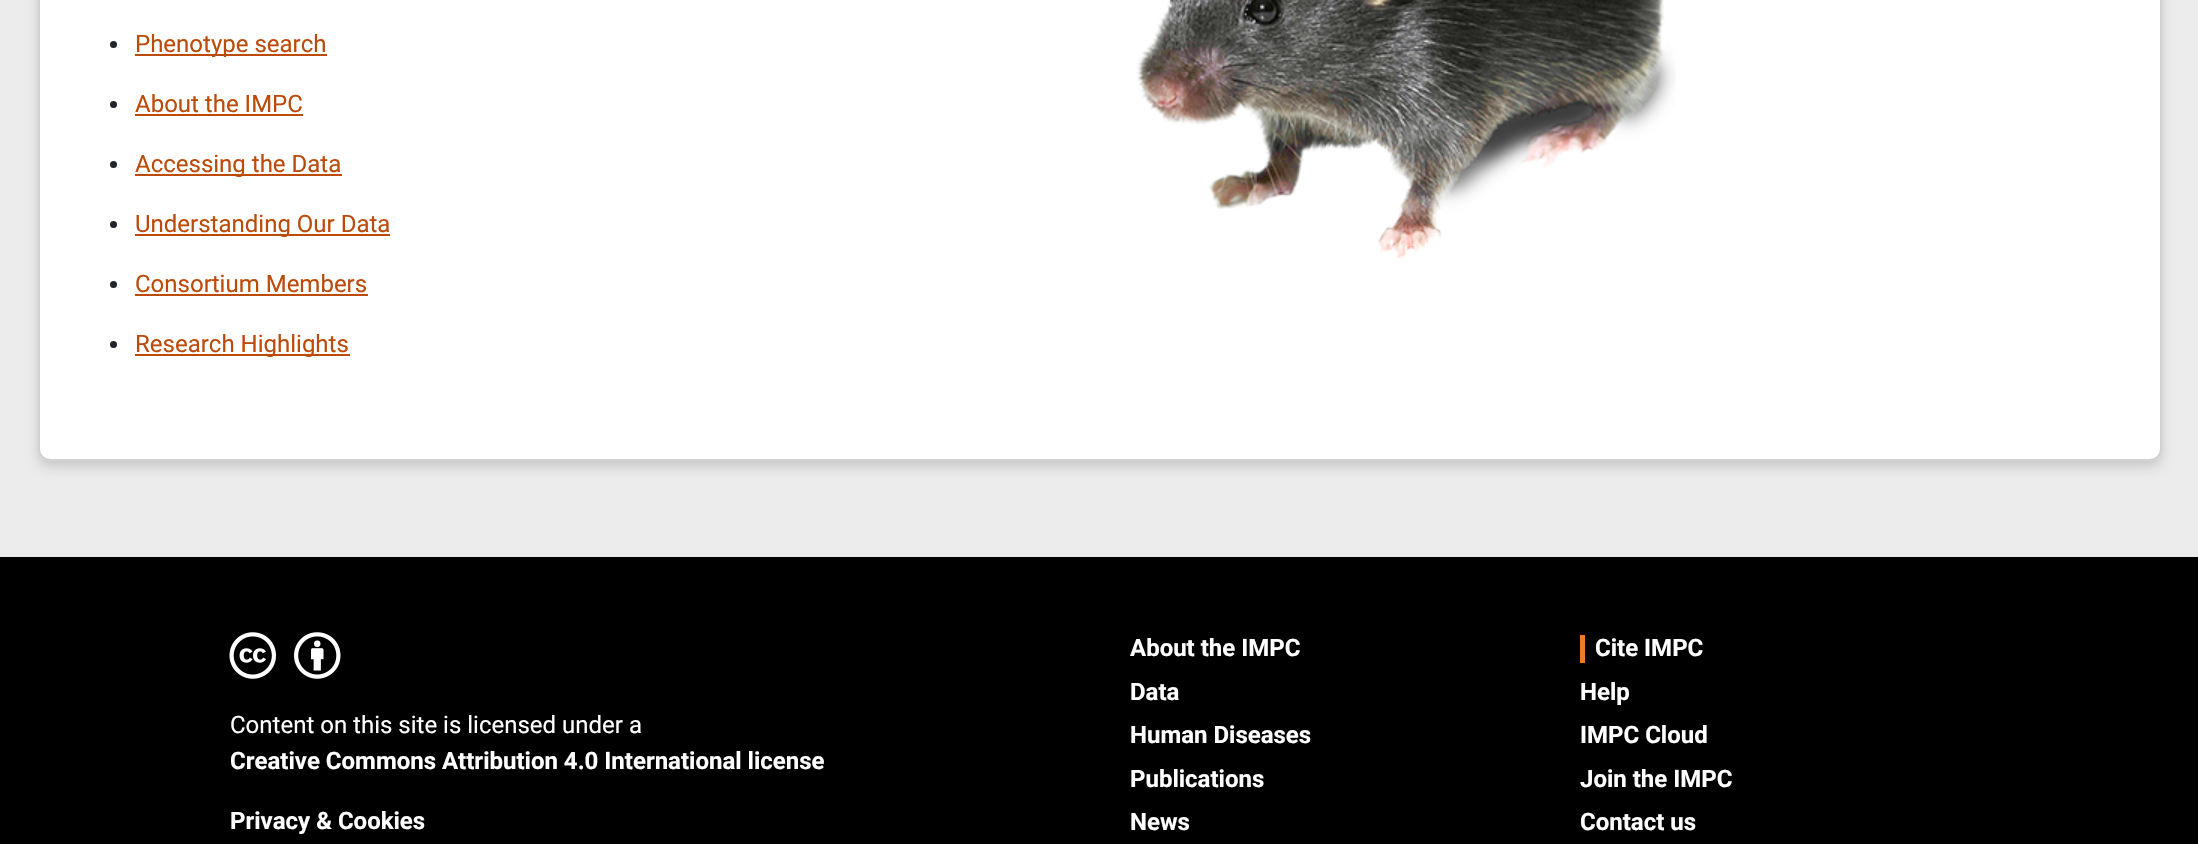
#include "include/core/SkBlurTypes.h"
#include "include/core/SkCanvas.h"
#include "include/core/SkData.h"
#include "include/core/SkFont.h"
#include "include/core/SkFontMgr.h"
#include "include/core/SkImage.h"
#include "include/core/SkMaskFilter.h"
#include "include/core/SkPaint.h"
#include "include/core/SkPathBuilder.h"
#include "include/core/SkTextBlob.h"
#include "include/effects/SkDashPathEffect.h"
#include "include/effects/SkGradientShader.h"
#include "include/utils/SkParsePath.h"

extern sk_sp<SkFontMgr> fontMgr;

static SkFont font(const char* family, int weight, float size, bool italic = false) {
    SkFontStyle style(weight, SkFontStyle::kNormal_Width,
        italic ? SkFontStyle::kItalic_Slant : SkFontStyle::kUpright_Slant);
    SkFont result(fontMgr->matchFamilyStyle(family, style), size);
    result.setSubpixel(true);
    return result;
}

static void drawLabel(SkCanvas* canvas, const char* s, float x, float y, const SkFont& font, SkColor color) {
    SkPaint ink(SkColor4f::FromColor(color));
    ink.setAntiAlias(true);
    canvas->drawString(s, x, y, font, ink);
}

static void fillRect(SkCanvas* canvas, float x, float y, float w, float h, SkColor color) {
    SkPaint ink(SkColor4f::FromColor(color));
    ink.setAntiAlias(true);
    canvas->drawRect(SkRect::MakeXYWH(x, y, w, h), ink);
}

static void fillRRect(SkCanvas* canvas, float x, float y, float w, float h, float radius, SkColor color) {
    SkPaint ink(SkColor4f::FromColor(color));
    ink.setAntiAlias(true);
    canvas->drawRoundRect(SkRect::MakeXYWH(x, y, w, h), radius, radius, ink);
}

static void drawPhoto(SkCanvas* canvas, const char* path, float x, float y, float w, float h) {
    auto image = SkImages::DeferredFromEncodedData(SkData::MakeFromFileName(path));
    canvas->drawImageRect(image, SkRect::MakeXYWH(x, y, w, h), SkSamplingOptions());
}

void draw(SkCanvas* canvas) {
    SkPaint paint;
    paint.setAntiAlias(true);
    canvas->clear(0xFFECECEC);
    paint.setColor(0x26000000);
    paint.setMaskFilter(SkMaskFilter::MakeBlur(kNormal_SkBlurStyle, 6));
    canvas->drawRoundRect(SkRect::MakeXYWH(38, -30, 2124, 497), 12, 12, paint);
    paint.setMaskFilter(nullptr);
    fillRRect(canvas, 38, -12, 2124, 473, 12, 0xFFFFFFFF);
    paint.setStroke(true);
    paint.setStrokeWidth(2);
    paint.setColor(0x2E000000);
    canvas->drawRoundRect(SkRect::MakeXYWH(39, -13, 2122, 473), 11, 11, paint);
    paint.setStroke(false);
    paint.setColor(0xFF212529);
    canvas->drawCircle(113.5f, 44.5f, 3.5f, paint);
    fillRect(canvas, 135, 54, 192, 2, 0xFFBC4B0A);
    SkFont font1 = font("Roboto", 400, 24);
    drawLabel(canvas, "Phenotype search", 135, 52, font1, 0xFFBC4B0A);
    canvas->drawCircle(113.5f, 104.5f, 3.5f, paint);
    drawLabel(canvas, "About the IMPC", 135, 112, font1, 0xFFBC4B0A);
    fillRect(canvas, 135, 114, 168, 2, 0xFFBC4B0A);
    canvas->drawCircle(113.5f, 164.5f, 3.5f, paint);
    fillRect(canvas, 135, 174, 207, 2, 0xFFBC4B0A);
    drawLabel(canvas, "Accessing the Data", 135, 172, font1, 0xFFBC4B0A);
    canvas->drawCircle(113.5f, 224.5f, 3.5f, paint);
    fillRect(canvas, 135, 234, 255, 2, 0xFFBC4B0A);
    drawLabel(canvas, "Understanding Our Data", 135, 232, font1, 0xFFBC4B0A);
    canvas->drawCircle(113.5f, 284.5f, 3.5f, paint);
    drawLabel(canvas, "Consortium Members", 135, 292, font1, 0xFFBC4B0A);
    fillRect(canvas, 135, 294, 233, 2, 0xFFBC4B0A);
    canvas->drawCircle(113.5f, 344.5f, 3.5f, paint);
    fillRect(canvas, 135, 354, 215, 2, 0xFFBC4B0A);
    drawLabel(canvas, "Research Highlights", 135, 352, font1, 0xFFBC4B0A);
    drawPhoto(canvas, "assets/img1.png", 1136, 0, 540, 259);
    fillRect(canvas, 0, 557, 2198, 287, 0xFF000000);
    drawPhoto(canvas, "assets/img2.png", 229, 632, 47, 47);
    drawPhoto(canvas, "assets/img3.png", 294, 632, 47, 47);
    drawLabel(canvas, "Content on this site is licensed under a", 230, 733, font1, 0xFFFFFFFF);
    SkFont font2 = font("Roboto", 700, 24);
    drawLabel(canvas, "Creative Commons Attribution 4.0 International license", 230, 769, font2, 0xFFFFFFFF);
    drawLabel(canvas, "Privacy & Cookies", 230, 829, font2, 0xFFFFFFFF);
    drawLabel(canvas, "About the IMPC", 1130, 656, font2, 0xFFFFFFFF);
    drawLabel(canvas, "Data", 1130, 700, font2, 0xFFFFFFFF);
    drawLabel(canvas, "Human Diseases", 1130, 743, font2, 0xFFFFFFFF);
    drawLabel(canvas, "Publications", 1130, 787, font2, 0xFFFFFFFF);
    drawLabel(canvas, "News", 1130, 830, font2, 0xFFFFFFFF);
    drawLabel(canvas, "Cite IMPC", 1595, 656, font2, 0xFFFFFFFF);
    fillRect(canvas, 1580, 635, 5, 28, 0xFFED7B25);
    drawLabel(canvas, "Help", 1580, 700, font2, 0xFFFFFFFF);
    drawLabel(canvas, "IMPC Cloud", 1580, 743, font2, 0xFFFFFFFF);
    drawLabel(canvas, "Join the IMPC", 1580, 787, font2, 0xFFFFFFFF);
    drawLabel(canvas, "Contact us", 1580, 830, font2, 0xFFFFFFFF);
}
